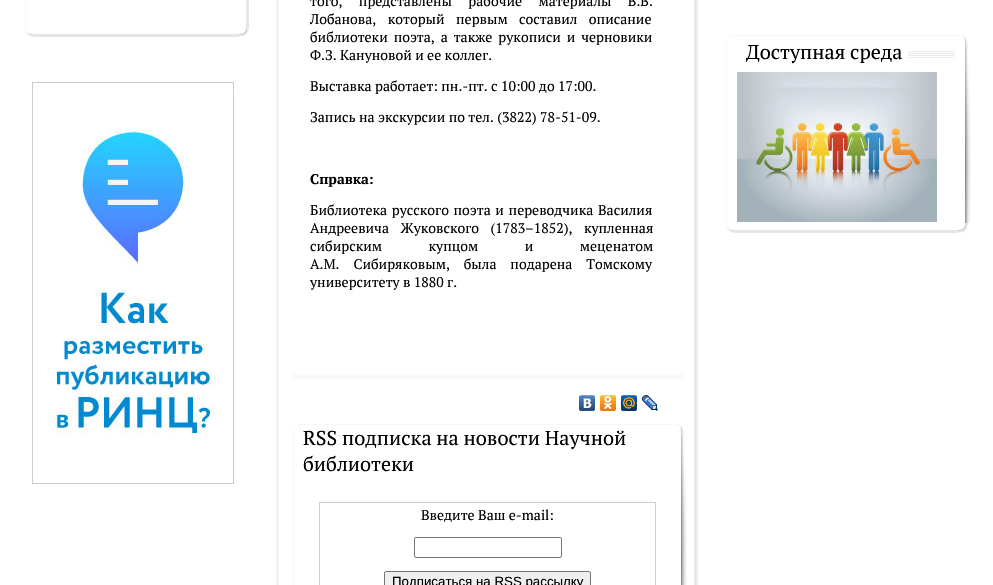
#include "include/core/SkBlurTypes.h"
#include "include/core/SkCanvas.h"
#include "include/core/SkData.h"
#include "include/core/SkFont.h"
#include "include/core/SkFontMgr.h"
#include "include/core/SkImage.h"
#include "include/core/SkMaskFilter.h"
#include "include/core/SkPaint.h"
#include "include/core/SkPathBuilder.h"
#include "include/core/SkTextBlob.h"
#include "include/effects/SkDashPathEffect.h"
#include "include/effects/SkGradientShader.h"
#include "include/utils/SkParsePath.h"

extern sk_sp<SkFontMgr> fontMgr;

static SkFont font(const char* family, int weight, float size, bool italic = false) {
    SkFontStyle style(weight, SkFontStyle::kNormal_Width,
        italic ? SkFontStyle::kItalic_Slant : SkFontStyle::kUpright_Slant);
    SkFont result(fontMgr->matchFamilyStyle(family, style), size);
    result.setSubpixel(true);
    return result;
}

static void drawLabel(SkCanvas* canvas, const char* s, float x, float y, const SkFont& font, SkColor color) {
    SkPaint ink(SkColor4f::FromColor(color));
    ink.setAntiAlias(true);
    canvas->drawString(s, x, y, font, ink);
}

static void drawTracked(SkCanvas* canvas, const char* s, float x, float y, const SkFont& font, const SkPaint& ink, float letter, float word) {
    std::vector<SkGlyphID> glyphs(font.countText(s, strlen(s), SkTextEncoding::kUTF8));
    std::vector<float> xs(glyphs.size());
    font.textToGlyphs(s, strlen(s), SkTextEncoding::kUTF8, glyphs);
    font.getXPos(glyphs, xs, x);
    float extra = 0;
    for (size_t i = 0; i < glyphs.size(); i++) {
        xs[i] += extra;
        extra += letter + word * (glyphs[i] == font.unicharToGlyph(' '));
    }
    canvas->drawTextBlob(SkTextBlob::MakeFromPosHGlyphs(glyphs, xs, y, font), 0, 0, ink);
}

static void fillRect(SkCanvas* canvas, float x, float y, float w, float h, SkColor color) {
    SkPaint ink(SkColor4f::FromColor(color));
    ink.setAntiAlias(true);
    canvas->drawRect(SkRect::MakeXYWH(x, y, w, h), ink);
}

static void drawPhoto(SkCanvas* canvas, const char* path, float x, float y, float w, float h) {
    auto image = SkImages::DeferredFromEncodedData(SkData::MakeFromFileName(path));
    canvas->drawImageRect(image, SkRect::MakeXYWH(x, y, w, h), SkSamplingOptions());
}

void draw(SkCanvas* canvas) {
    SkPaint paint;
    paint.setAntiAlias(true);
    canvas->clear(0xFFFFFFFF);
    fillRect(canvas, 25, 0, 1, 37, 0xFFF7F7F7);
    fillRect(canvas, 246, 0, 3, 37, 0xFFE6E6E6);
    fillRect(canvas, 26, 34, 220, 3, 0xFFE6E6E6);
    drawPhoto(canvas, "assets/img1.png", 25, 30, 8, 7);
    drawPhoto(canvas, "assets/img2.png", 239, 29, 10, 8);
    drawPhoto(canvas, "assets/img3.png", 32, 82, 202, 402);
    drawPhoto(canvas, "assets/img4.png", 694, 0, 5, 585);
    fillRect(canvas, 276, 0, 3, 585, 0xFFF3F3F3);
    SkFont font1 = font("PT Serif", 400, 14);
    paint.setColor(0xFF000000);
    drawTracked(canvas, "того, представлены рабочие материалы В.В.", 310, 6, font1, paint, 0, 13);
    drawTracked(canvas, "Лобанова, который первым составил описание", 310, 24, font1, paint, 0, 8);
    drawTracked(canvas, "библиотеки поэта, а также рукописи и черновики", 310, 42, font1, paint, 0, 2.5f);
    drawLabel(canvas, "Ф.З. Кануновой и ее коллег.", 310, 60, font1, 0xFF000000);
    drawLabel(canvas, "Выставка работает: пн.-пт. с 10:00 до 17:00.", 310, 91, font1, 0xFF000000);
    drawLabel(canvas, "Запись на экскурсии по тел. (3822) 78-51-09.", 310, 122, font1, 0xFF000000);
    SkFont font2 = font("PT Serif", 700, 14);
    drawLabel(canvas, "Справка:", 310, 184, font2, 0xFF000000);
    drawTracked(canvas, "Библиотека русского поэта и переводчика Василия", 310, 215, font1, paint, 0, 1.25f);
    drawTracked(canvas, "Андреевича Жуковского (1783–1852), купленная", 310, 233, font1, paint, 0, 8);
    drawTracked(canvas, "сибирским купцом и меценатом", 310, 251, font1, paint, 0, 43);
    drawTracked(canvas, "А.М. Сибиряковым, была подарена Томскому", 310, 269, font1, paint, 0, 10.5f);
    drawLabel(canvas, "университету в 1880 г.", 310, 287, font1, 0xFF000000);
    fillRect(canvas, 293, 374, 391, 5, 0xFFF9F9F9);
    drawPhoto(canvas, "assets/img5.png", 579, 395, 16, 16);
    drawPhoto(canvas, "assets/img6.png", 600, 395, 16, 16);
    drawPhoto(canvas, "assets/img7.png", 621, 395, 16, 16);
    drawPhoto(canvas, "assets/img8.png", 642, 395, 16, 16);
    fillRect(canvas, 293, 424, 391, 1, 0xFFF7F7F7);
    fillRect(canvas, 293, 425, 1, 160, 0xFFF7F7F7);
    fillRect(canvas, 681, 425, 3, 9, 0xFFE6E6E6);
    drawPhoto(canvas, "assets/img9.png", 293, 424, 6, 6);
    drawPhoto(canvas, "assets/img10.png", 677, 424, 7, 9);
    SkFont font3 = font("PT Serif", 400, 20);
    drawLabel(canvas, "RSS подписка на новости Научной", 303, 445, font3, 0xFF000000);
    drawLabel(canvas, "библиотеки", 303, 471, font3, 0xFF000000);
    paint.setStroke(true);
    paint.setStrokeWidth(1);
    paint.setColor(0xFFCCCCCC);
    canvas->drawRect(SkRect::MakeXYWH(319.5f, 502.5f, 336, 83), paint);
    drawLabel(canvas, "Введите Ваш e-mail:", 421, 520, font1, 0xFF000000);
    paint.setColor(0xFF767676);
    canvas->drawRoundRect(SkRect::MakeXYWH(414.5f, 537.5f, 147, 20), 1.5f, 1.5f, paint);
    paint.setStroke(false);
    paint.setColor(0xFFEFEFEF);
    canvas->drawRoundRect(SkRect::MakeXYWH(384.5f, 571.5f, 206, 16), 1.5f, 1.5f, paint);
    paint.setStroke(true);
    paint.setColor(0xFF767676);
    canvas->drawRoundRect(SkRect::MakeXYWH(384.5f, 571.5f, 206, 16), 1.5f, 1.5f, paint);
    SkFont font4 = font("Liberation Sans", 400, 13.3f);
    drawLabel(canvas, "Подписаться на RSS рассылку", 392, 586, font4, 0xFF000000);
    drawPhoto(canvas, "assets/img11.png", 681, 434, 6, 151);
    fillRect(canvas, 726, 35, 242, 1, 0xFFF7F7F7);
    fillRect(canvas, 726, 36, 1, 197, 0xFFF7F7F7);
    fillRect(canvas, 965, 36, 3, 197, 0xFFE6E6E6);
    fillRect(canvas, 727, 230, 238, 3, 0xFFE6E6E6);
    drawPhoto(canvas, "assets/img9.png", 726, 35, 6, 6);
    drawPhoto(canvas, "assets/img10.png", 961, 35, 7, 9);
    drawPhoto(canvas, "assets/img12.png", 908, 51, 47, 7);
    drawLabel(canvas, "Доступная среда", 746, 59, font3, 0xFF000000);
    drawPhoto(canvas, "assets/img13.png", 737, 72, 200, 150);
    drawPhoto(canvas, "assets/img1.png", 726, 226, 8, 7);
    drawPhoto(canvas, "assets/img2.png", 958, 225, 10, 8);
    drawPhoto(canvas, "assets/img14.png", 965, 45, 6, 178);
}
